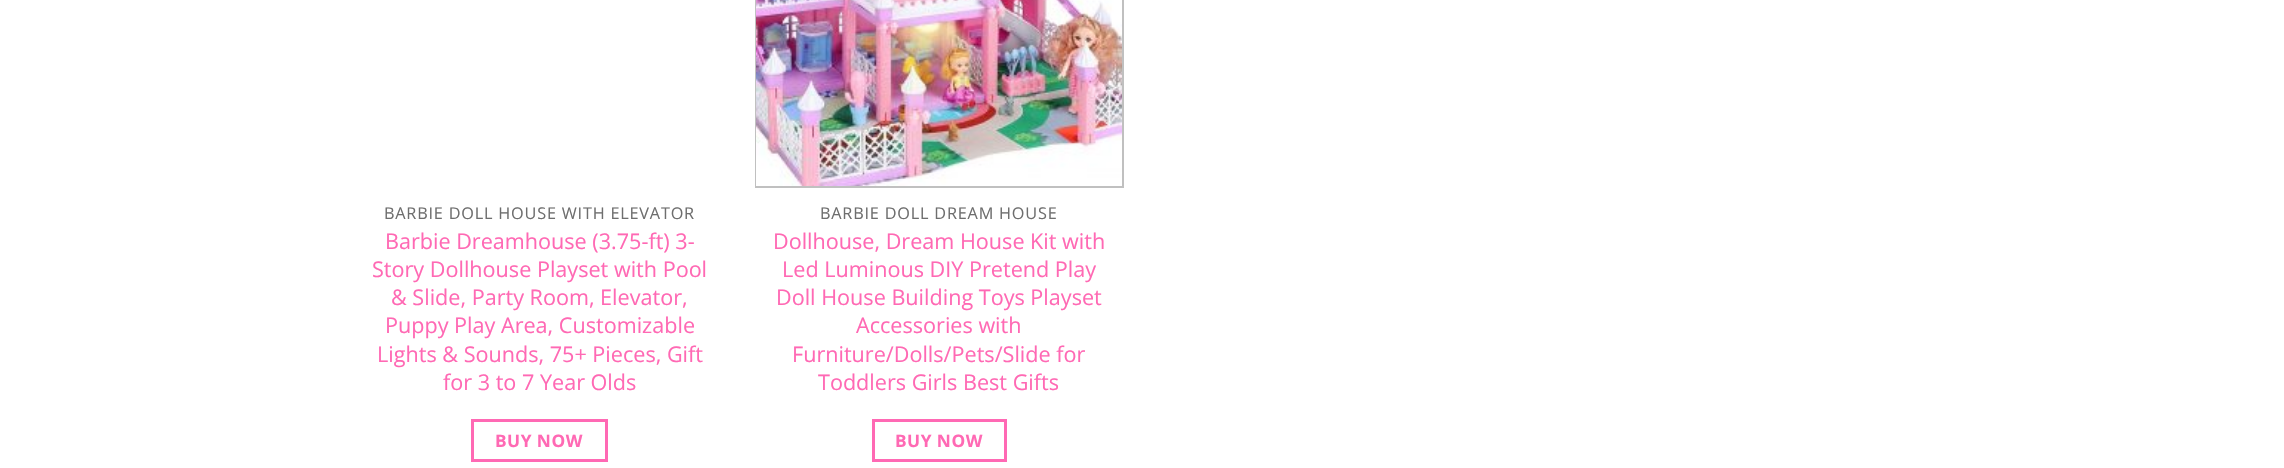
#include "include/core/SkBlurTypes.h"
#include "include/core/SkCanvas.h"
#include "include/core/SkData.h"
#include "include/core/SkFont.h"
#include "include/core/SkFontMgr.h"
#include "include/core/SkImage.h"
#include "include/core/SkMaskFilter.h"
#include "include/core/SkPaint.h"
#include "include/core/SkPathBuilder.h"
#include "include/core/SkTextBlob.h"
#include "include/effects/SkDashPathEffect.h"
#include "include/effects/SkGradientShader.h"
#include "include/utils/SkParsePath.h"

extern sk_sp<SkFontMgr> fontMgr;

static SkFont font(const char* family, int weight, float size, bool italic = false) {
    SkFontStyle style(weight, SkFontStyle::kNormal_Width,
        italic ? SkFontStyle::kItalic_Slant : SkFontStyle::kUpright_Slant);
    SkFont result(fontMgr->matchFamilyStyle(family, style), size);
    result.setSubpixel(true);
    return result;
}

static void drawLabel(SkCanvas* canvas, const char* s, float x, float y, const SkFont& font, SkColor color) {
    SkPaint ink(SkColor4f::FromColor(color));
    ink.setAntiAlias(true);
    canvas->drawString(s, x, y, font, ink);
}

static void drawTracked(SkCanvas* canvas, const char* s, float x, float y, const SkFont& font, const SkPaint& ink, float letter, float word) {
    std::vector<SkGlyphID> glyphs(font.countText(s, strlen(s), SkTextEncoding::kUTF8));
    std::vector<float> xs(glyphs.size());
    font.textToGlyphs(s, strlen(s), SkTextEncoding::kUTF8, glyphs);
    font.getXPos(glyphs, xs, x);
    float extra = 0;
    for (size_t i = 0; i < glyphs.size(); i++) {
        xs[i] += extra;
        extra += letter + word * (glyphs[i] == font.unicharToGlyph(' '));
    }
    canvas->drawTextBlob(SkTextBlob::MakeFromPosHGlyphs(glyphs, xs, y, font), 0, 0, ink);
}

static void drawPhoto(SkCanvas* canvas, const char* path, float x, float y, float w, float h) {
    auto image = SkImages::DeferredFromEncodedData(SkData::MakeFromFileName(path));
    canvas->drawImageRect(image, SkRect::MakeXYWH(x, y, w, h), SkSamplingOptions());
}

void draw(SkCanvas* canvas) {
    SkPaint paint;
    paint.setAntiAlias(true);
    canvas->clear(0xFFFFFFFF);
    SkFont font1 = font("Open Sans", 400, 16.25f);
    paint.setColor(0xFF6E6E6E);
    drawTracked(canvas, "BARBIE DOLL HOUSE WITH ELEVATOR", 384, 219, font1, paint, 0.8f, 0);
    SkFont font2 = font("Open Sans", 400, 21.6f);
    drawLabel(canvas, "Barbie Dreamhouse (3.75-ft) 3-", 385, 249, font2, 0xFFFF69B4);
    drawLabel(canvas, "Story Dollhouse Playset with Pool", 372, 277, font2, 0xFFFF69B4);
    drawLabel(canvas, "& Slide, Party Room, Elevator,", 391, 305, font2, 0xFFFF69B4);
    drawLabel(canvas, "Puppy Play Area, Customizable", 385, 333, font2, 0xFFFF69B4);
    drawLabel(canvas, "Lights & Sounds, 75+ Pieces, Gift", 377, 362, font2, 0xFFFF69B4);
    drawLabel(canvas, "for 3 to 7 Year Olds", 443, 390, font2, 0xFFFF69B4);
    paint.setStroke(true);
    paint.setStrokeWidth(3);
    paint.setColor(0xFFFF69B4);
    canvas->drawRect(SkRect::MakeXYWH(472.5f, 420.5f, 134, 40), paint);
    SkFont font3 = font("Open Sans", 700, 17.25f);
    paint.setStroke(false);
    drawTracked(canvas, "BUY NOW", 495, 447, font3, paint, 0.5f, 0);
    paint.setStroke(true);
    paint.setStrokeWidth(2);
    paint.setColor(0xFFC0C0C0);
    canvas->drawRect(SkRect::MakeXYWH(756, -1, 367, 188), paint);
    drawPhoto(canvas, "assets/img1.png", 756, 0, 366, 186);
    paint.setStroke(false);
    paint.setColor(0xFF6E6E6E);
    drawTracked(canvas, "BARBIE DOLL DREAM HOUSE", 820, 219, font1, paint, 0.8f, 0);
    drawLabel(canvas, "Dollhouse, Dream House Kit with", 773, 249, font2, 0xFFFF69B4);
    drawLabel(canvas, "Led Luminous DIY Pretend Play", 782, 277, font2, 0xFFFF69B4);
    drawLabel(canvas, "Doll House Building Toys Playset", 776, 305, font2, 0xFFFF69B4);
    drawLabel(canvas, "Accessories with", 856, 333, font2, 0xFFFF69B4);
    drawLabel(canvas, "Furniture/Dolls/Pets/Slide for", 792, 362, font2, 0xFFFF69B4);
    drawLabel(canvas, "Toddlers Girls Best Gifts", 818, 390, font2, 0xFFFF69B4);
    paint.setStroke(true);
    paint.setStrokeWidth(3);
    paint.setColor(0xFFFF69B4);
    canvas->drawRect(SkRect::MakeXYWH(873.5f, 420.5f, 132, 40), paint);
    paint.setStroke(false);
    drawTracked(canvas, "BUY NOW", 895, 447, font3, paint, 0.5f, 0);
}
